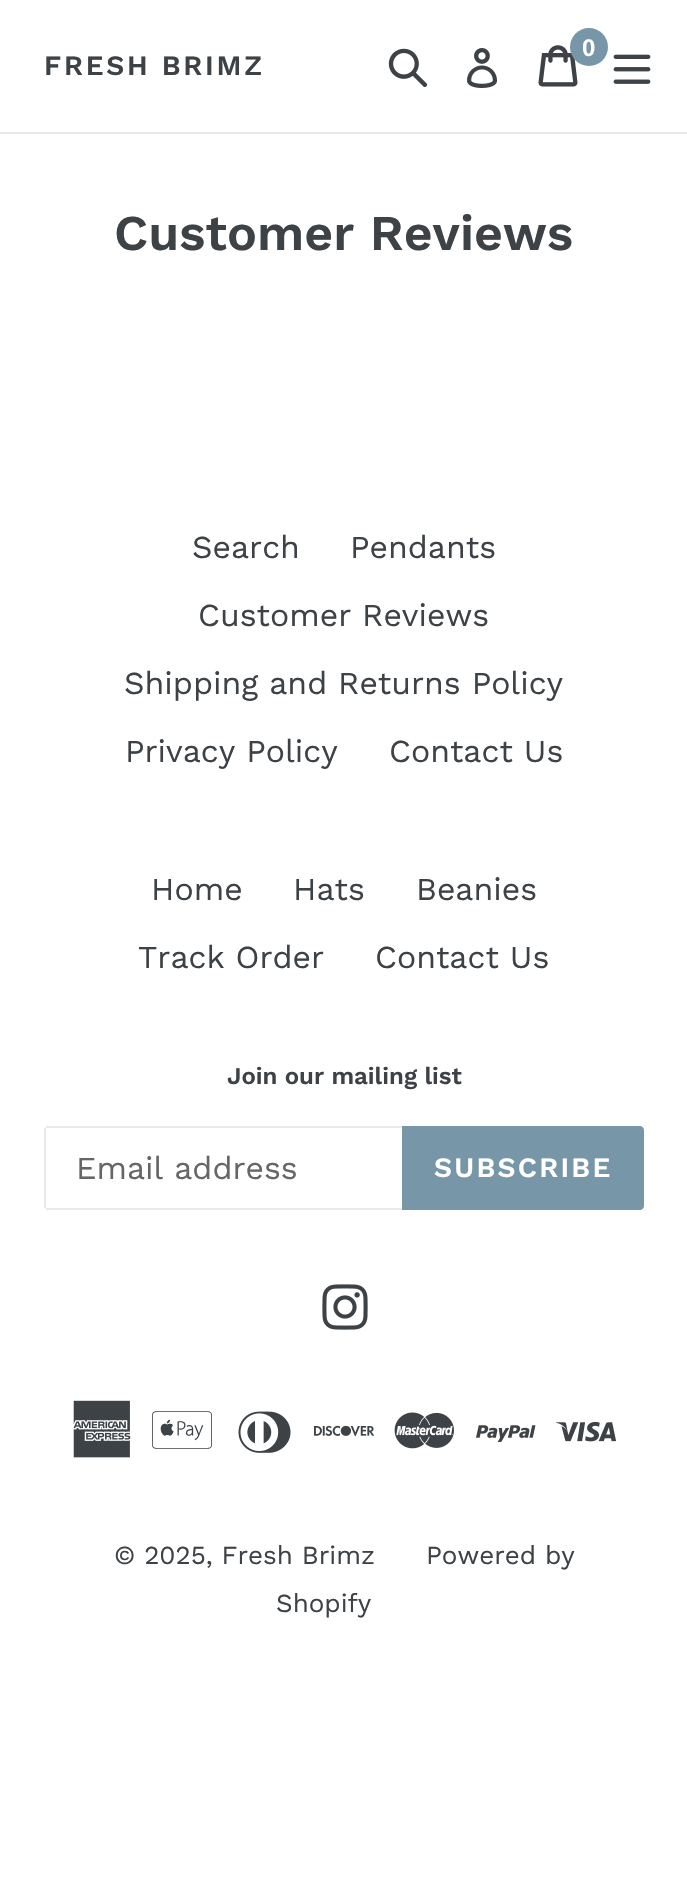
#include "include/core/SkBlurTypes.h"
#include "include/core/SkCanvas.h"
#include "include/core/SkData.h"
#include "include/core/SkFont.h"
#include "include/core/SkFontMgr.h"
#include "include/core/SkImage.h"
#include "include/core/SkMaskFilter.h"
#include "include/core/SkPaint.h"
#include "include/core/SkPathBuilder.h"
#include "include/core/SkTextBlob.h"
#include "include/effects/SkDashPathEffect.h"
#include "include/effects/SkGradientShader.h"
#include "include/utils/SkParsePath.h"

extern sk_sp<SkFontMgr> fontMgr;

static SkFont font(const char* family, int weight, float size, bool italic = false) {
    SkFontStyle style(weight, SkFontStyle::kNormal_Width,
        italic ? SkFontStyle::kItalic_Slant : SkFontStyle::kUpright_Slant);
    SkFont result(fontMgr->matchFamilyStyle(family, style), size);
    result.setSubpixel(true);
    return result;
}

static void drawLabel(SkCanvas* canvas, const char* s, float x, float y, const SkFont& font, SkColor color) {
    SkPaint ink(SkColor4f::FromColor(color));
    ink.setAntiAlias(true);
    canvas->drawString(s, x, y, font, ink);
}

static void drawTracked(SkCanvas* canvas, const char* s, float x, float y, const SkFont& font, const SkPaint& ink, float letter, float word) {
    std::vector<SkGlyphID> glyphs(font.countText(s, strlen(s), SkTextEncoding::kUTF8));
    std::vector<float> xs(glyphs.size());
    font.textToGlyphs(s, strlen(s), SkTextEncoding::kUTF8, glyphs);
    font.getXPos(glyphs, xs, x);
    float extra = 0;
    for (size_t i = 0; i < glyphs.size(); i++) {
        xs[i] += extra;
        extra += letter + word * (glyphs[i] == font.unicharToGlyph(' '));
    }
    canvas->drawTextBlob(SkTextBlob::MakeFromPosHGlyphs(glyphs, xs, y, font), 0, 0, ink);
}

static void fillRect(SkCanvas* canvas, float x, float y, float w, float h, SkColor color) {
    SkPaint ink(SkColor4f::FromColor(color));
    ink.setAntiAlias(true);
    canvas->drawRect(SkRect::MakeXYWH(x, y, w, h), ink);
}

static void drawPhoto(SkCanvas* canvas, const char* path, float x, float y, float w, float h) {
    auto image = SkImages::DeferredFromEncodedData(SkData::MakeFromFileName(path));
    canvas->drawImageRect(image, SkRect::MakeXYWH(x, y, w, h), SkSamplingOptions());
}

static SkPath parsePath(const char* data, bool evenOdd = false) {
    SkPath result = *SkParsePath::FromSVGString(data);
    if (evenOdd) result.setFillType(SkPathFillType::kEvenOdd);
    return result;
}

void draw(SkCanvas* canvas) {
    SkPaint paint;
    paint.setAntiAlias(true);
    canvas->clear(0xFFFFFFFF);
    fillRect(canvas, 0, 132, 687, 2, 0xFFE8E9EB);
    drawPhoto(canvas, "assets/img1.png", 388, 48, 40, 40);
    drawPhoto(canvas, "assets/img2.png", 467, 48, 31, 40);
    drawPhoto(canvas, "assets/img3.png", 538, 45, 40, 42);
    paint.setColor(0xFF7796A8);
    canvas->drawCircle(589, 47, 19, paint);
    SkFont font1 = font("Liberation Sans", 700, 24);
    drawLabel(canvas, "0", 582, 56, font1, 0xFFFFFFFF);
    drawPhoto(canvas, "assets/img4.png", 613, 54, 38, 30);
    SkFont font2 = font("Work Sans", 600, 28);
    paint.setColor(0xFF3D4246);
    drawTracked(canvas, "FRESH BRIMZ", 44, 75, font2, paint, 2.75f, 0);
    SkFont font3 = font("Work Sans", 600, 50);
    drawLabel(canvas, "Customer Reviews", 114, 250, font3, 0xFF3D4246);
    SkFont font4 = font("Work Sans", 400, 32);
    drawLabel(canvas, "Search", 192, 558, font4, 0xFF3D4246);
    drawLabel(canvas, "Pendants", 350, 558, font4, 0xFF3D4246);
    drawLabel(canvas, "Customer Reviews", 198, 626, font4, 0xFF3D4246);
    drawLabel(canvas, "Shipping and Returns Policy", 124, 694, font4, 0xFF3D4246);
    drawLabel(canvas, "Privacy Policy", 125, 762, font4, 0xFF3D4246);
    drawLabel(canvas, "Contact Us", 389, 762, font4, 0xFF3D4246);
    drawLabel(canvas, "Home", 151, 900, font4, 0xFF3D4246);
    drawLabel(canvas, "Hats", 293, 900, font4, 0xFF3D4246);
    drawLabel(canvas, "Beanies", 416, 900, font4, 0xFF3D4246);
    drawLabel(canvas, "Track Order", 138, 968, font4, 0xFF3D4246);
    drawLabel(canvas, "Contact Us", 375, 968, font4, 0xFF3D4246);
    SkFont font5 = font("Work Sans", 600, 24);
    drawLabel(canvas, "Join our mailing list", 227, 1084, font5, 0xFF3D4246);
    fillRect(canvas, 46, 1126, 356, 2, 0xFFE8E9EB);
    fillRect(canvas, 46, 1208, 356, 2, 0xFFE8E9EB);
    fillRect(canvas, 44, 1128, 2, 80, 0xFFE8E9EB);
    drawLabel(canvas, "Email address", 76, 1179, font4, 0xFF666666);
    paint.setColor(0xFF7796A8);
    canvas->drawPath(parsePath("M402 1126H640C642 1126 644 1128 644 1130V1206C644 1208 642 1210 640 1210H402Z"), paint);
    paint.setColor(0xFFFFFFFF);
    drawTracked(canvas, "SUBSCRIBE", 434, 1177, font2, paint, 2.25f, 0);
    drawPhoto(canvas, "assets/img5.png", 322, 1284, 46, 46);
    drawPhoto(canvas, "assets/img6.png", 73, 1400, 58, 58);
    drawPhoto(canvas, "assets/img7.png", 152, 1411, 60, 38);
    drawPhoto(canvas, "assets/img8.png", 238, 1411, 53, 42);
    drawPhoto(canvas, "assets/img9.png", 314, 1425, 60, 11);
    drawPhoto(canvas, "assets/img10.png", 394, 1412, 60, 37);
    drawPhoto(canvas, "assets/img11.png", 476, 1425, 60, 17);
    drawPhoto(canvas, "assets/img12.png", 556, 1421, 60, 21);
    SkFont font6 = font("Work Sans", 400, 26);
    drawLabel(canvas, "© 2025, Fresh Brimz", 114, 1564, font6, 0xFF3D4246);
    drawLabel(canvas, "Powered by", 426, 1564, font6, 0xFF3D4246);
    drawLabel(canvas, "Shopify", 276, 1612, font6, 0xFF3D4246);
}
